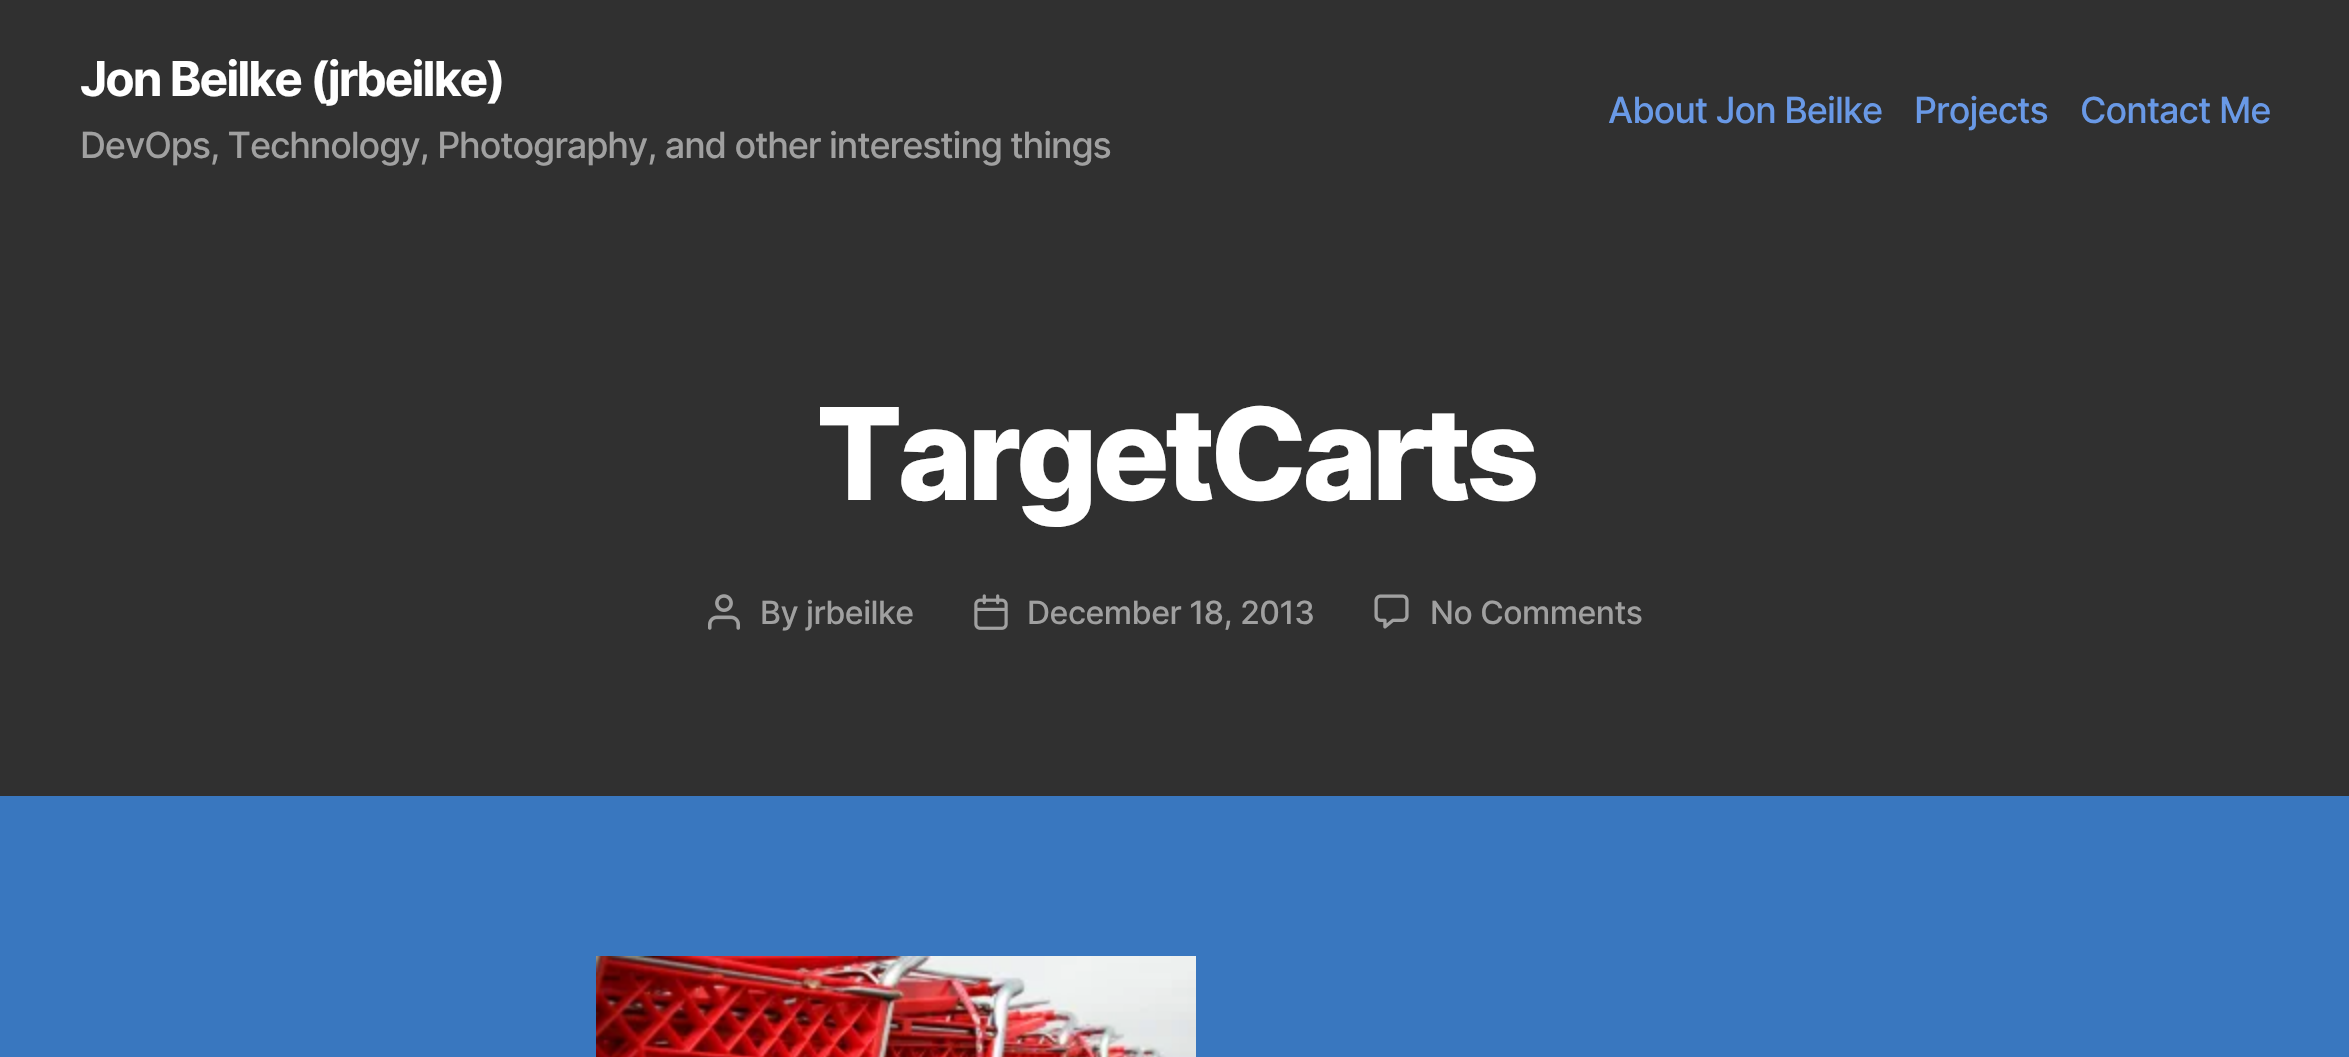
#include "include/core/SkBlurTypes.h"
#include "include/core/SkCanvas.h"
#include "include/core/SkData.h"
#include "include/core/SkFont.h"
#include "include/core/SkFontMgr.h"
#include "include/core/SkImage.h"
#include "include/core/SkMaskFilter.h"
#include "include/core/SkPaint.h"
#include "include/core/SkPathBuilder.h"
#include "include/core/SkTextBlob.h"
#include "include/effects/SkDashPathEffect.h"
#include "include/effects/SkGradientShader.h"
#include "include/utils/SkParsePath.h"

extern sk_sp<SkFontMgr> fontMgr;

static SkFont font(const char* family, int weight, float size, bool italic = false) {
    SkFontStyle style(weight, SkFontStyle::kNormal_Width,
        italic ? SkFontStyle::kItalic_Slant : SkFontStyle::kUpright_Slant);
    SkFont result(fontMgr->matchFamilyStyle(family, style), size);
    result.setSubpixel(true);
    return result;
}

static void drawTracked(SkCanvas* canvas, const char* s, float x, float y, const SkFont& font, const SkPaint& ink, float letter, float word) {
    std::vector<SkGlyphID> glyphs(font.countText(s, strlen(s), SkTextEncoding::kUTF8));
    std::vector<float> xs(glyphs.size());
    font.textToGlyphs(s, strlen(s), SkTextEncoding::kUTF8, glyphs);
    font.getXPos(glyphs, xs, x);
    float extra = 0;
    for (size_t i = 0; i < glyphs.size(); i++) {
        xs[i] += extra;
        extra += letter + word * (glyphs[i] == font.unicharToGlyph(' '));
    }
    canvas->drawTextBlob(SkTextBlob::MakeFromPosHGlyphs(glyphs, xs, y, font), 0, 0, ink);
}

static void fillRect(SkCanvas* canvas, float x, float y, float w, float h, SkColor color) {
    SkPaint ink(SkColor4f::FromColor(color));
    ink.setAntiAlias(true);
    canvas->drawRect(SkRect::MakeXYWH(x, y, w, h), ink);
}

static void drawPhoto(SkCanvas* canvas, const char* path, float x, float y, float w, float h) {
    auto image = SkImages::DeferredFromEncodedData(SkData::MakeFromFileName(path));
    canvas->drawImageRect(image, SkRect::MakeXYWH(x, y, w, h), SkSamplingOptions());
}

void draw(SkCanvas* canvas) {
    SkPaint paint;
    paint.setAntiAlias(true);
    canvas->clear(0xFF3977BF);
    fillRect(canvas, 0, 0, 2349, 796, 0xFF303030);
    SkFont font1 = font("Inter", 700, 48);
    paint.setColor(0xFFFFFFFF);
    drawTracked(canvas, "Jon Beilke (jrbeilke)", 80, 96, font1, paint, -2, 0);
    SkFont font2 = font("Inter", 500, 36);
    paint.setColor(0xFFA0A0A0);
    drawTracked(canvas, "DevOps, Technology, Photography, and other interesting things", 80, 158, font2, paint, -1.12f, 0);
    paint.setColor(0xFF6999E6);
    drawTracked(canvas, "About Jon Beilke", 1608, 123, font2, paint, -1, 0);
    drawTracked(canvas, "Projects", 1914, 123, font2, paint, -1, 0);
    drawTracked(canvas, "Contact Me", 2080, 123, font2, paint, -1, 0);
    SkFont font3 = font("Inter", 800, 128);
    paint.setColor(0xFFFFFFFF);
    drawTracked(canvas, "TargetCarts", 816, 500, font3, paint, -5.25f, 0);
    drawPhoto(canvas, "assets/img1.png", 708, 594, 32, 36);
    SkFont font4 = font("Inter", 500, 32);
    paint.setColor(0xFFA0A0A0);
    drawTracked(canvas, "By jrbeilke", 760, 624, font4, paint, -0.5f, 0);
    drawPhoto(canvas, "assets/img2.png", 974, 594, 34, 36);
    drawTracked(canvas, "December 18, 2013", 1027, 624, font4, paint, -0.5f, 0);
    drawPhoto(canvas, "assets/img3.png", 1374, 594, 35, 35);
    drawTracked(canvas, "No Comments", 1430, 624, font4, paint, -0.5f, 0);
    drawPhoto(canvas, "assets/img4.png", 596, 956, 600, 101);
}
